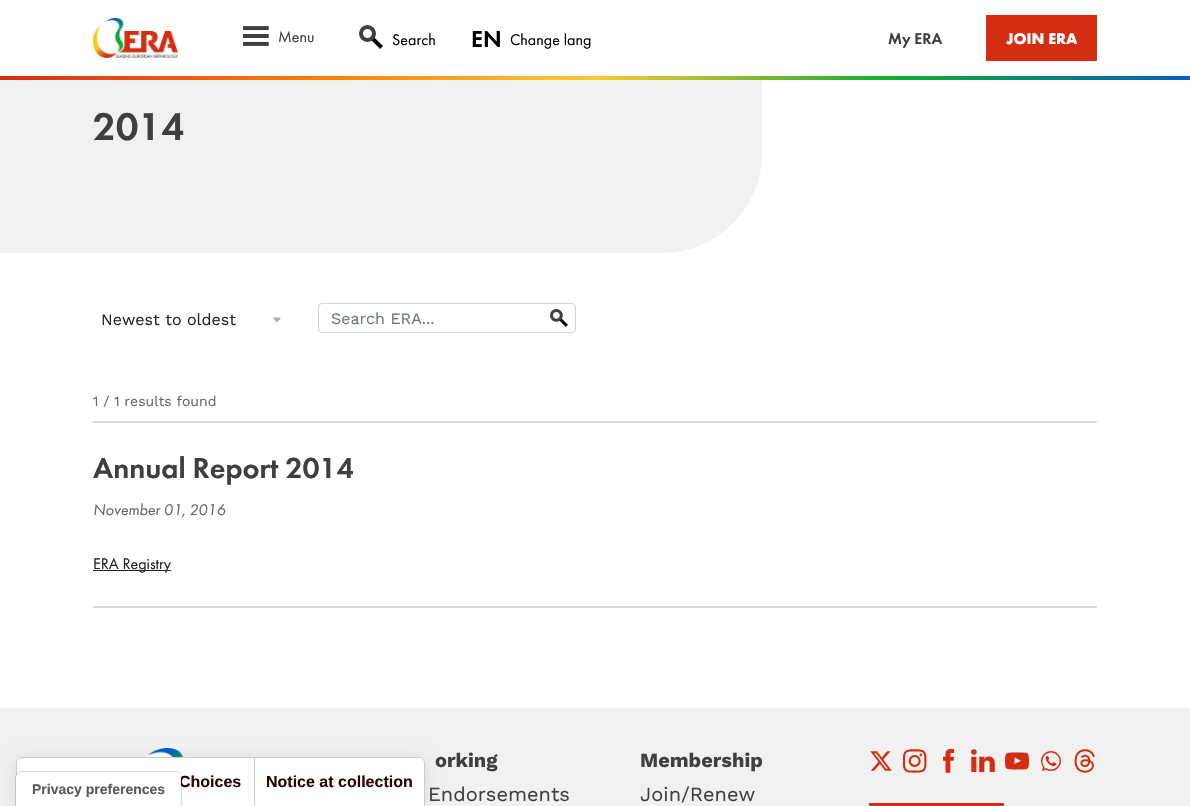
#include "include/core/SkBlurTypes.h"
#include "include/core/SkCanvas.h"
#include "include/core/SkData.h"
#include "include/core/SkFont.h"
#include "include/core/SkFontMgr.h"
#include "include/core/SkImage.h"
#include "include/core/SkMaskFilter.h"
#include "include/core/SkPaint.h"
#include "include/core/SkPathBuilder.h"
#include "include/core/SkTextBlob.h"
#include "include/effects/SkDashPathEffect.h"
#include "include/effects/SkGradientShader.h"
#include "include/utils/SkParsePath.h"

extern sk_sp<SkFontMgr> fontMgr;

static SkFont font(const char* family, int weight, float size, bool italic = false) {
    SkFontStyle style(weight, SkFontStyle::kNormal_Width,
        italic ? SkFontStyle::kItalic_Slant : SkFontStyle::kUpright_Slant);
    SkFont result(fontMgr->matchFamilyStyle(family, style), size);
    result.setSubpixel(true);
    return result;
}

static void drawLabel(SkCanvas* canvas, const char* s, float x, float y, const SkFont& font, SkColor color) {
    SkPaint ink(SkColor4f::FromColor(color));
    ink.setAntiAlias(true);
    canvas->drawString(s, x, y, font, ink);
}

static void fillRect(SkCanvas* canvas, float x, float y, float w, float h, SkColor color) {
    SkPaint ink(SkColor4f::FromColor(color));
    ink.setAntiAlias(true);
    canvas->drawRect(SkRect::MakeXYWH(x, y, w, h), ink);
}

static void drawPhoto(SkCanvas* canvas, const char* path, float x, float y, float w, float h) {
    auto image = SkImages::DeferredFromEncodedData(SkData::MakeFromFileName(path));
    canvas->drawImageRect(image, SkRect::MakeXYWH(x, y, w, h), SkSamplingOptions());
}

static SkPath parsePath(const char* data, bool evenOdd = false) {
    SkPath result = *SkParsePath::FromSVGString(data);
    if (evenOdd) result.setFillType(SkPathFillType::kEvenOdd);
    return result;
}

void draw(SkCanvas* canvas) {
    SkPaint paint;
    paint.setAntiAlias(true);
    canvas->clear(0xFFFFFFFF);
    paint.setColor(0xFFF1F1F1);
    canvas->drawPath(parsePath("M0 33H762V153C762 208 717 253 662 253H0Z"), paint);
    fillRect(canvas, 0, 33, 762, 43, 0xFFFFFFFF);
    drawPhoto(canvas, "assets/img1.png", 0, 76, 1190, 4);
    drawPhoto(canvas, "assets/img2.png", 93, 18, 85, 40);
    drawPhoto(canvas, "assets/img3.png", 243, 26, 26, 20);
    SkFont font1 = font("Futura PT", 400, 16);
    drawLabel(canvas, "Menu", 278, 42, font1, 0xFF3F3F3F);
    drawPhoto(canvas, "assets/img4.png", 359, 25, 24, 24);
    drawLabel(canvas, "Search", 392, 45, font1, 0xFF000000);
    SkFont font2 = font("Futura PT", 500, 24);
    drawLabel(canvas, "EN", 471, 47, font2, 0xFF000000);
    drawLabel(canvas, "Change lang", 510, 45, font1, 0xFF000000);
    SkFont font3 = font("Futura PT", 500, 16);
    drawLabel(canvas, "My ERA", 888, 44, font3, 0xFF3F3F3F);
    fillRect(canvas, 986, 15, 111, 46, 0xFFD32E12);
    SkFont font4 = font("Futura PT", 700, 16);
    drawLabel(canvas, "JOIN ERA", 1006, 44, font4, 0xFFFFFFFF);
    SkFont font5 = font("Futura PT", 500, 40);
    drawLabel(canvas, "2014", 93, 140, font5, 0xFF3F3F3F);
    fillRect(canvas, 93, 421, 1004, 2, 0xFFD8D8D8);
    drawPhoto(canvas, "assets/img5.png", 273, 317, 8, 5);
    SkFont font6 = font("Work Sans", 400, 16);
    drawLabel(canvas, "Newest to oldest", 101, 325, font6, 0xFF212529);
    drawPhoto(canvas, "assets/img6.png", 550, 309, 18, 18);
    paint.setStroke(true);
    paint.setStrokeWidth(1);
    paint.setColor(0xFFCED4DA);
    canvas->drawRoundRect(SkRect::MakeXYWH(318.5f, 303.5f, 257, 29), 3.5f, 3.5f, paint);
    drawLabel(canvas, "Search ERA...", 331, 324, font6, 0xFF6C757D);
    SkFont font7 = font("Work Sans", 400, 14);
    drawLabel(canvas, "1 / 1 results found", 93, 406, font7, 0xFF666666);
    fillRect(canvas, 93, 606, 1004, 2, 0xFFD8D8D8);
    SkFont font8 = font("Futura PT", 500, 30);
    drawLabel(canvas, "Annual Report 2014", 93, 478, font8, 0xFF3F3F3F);
    SkFont font9 = font("Futura PT", 400, 16, true);
    drawLabel(canvas, "November 01, 2016", 93, 515, font9, 0xFF666666);
    fillRect(canvas, 93, 570, 78, 1, 0xFF212529);
    drawLabel(canvas, "ERA Registry", 93, 569, font1, 0xFF212529);
    fillRect(canvas, 0, 708, 1190, 98, 0xFFF1F1F1);
    drawPhoto(canvas, "assets/img7.png", 144, 748, 40, 9);
    SkFont font10 = font("Work Sans", 700, 20);
    drawLabel(canvas, "orking", 435, 767, font10, 0xFF3F3F3F);
    SkFont font11 = font("Work Sans", 400, 20);
    drawLabel(canvas, "Endorsements", 428, 801, font11, 0xFF3F3F3F);
    drawLabel(canvas, "Membership", 640, 767, font10, 0xFF3F3F3F);
    drawLabel(canvas, "Join/Renew", 640, 801, font11, 0xFF3F3F3F);
    drawPhoto(canvas, "assets/img8.png", 870, 751, 22, 20);
    drawPhoto(canvas, "assets/img9.png", 903, 749, 24, 24);
    drawPhoto(canvas, "assets/img10.png", 943, 749, 12, 24);
    drawPhoto(canvas, "assets/img11.png", 971, 749, 24, 23);
    drawPhoto(canvas, "assets/img12.png", 1005, 752, 24, 18);
    drawPhoto(canvas, "assets/img13.png", 1041, 751, 20, 20);
    drawPhoto(canvas, "assets/img14.png", 1074, 749, 21, 24);
    fillRect(canvas, 869, 803, 135, 3, 0xFFD32E12);
    paint.setStroke(false);
    paint.setColor(0x1A000000);
    paint.setMaskFilter(SkMaskFilter::MakeBlur(kNormal_SkBlurStyle, 8));
    canvas->drawRoundRect(SkRect::MakeXYWH(16, 761, 409, 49), 6, 6, paint);
    paint.setMaskFilter(nullptr);
    paint.setColor(0xFFFFFFFF);
    canvas->drawPath(parsePath("M22 757H419C422.5 757 425 759.5 425 763V806H16V763C16 759.5 18.5 757 22 757Z"), paint);
    paint.setColor(0x33000000);
    canvas->drawPath(parsePath("M22 757H419C422 757 425 760 425 763V806H16V763C16 760 19 757 22 757ZM22 758H419C422 758 424 760 424 763V806H17V763C17 760 19 758 22 758Z", true), paint);
    fillRect(canvas, 254, 758, 1, 48, 0xFFCCCCCC);
    SkFont font12 = font("Liberation Sans", 700, 16);
    drawLabel(canvas, "Choices", 179, 787, font12, 0xFF280404);
    drawLabel(canvas, "Notice at collection", 266, 787, font12, 0xFF280404);
    paint.setStroke(true);
    paint.setColor(0x26000000);
    canvas->drawPath(parsePath("M22 771.5H175C178.5 771.5 181.5 774.5 181.5 778V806.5H15.5V778C15.5 774.5 18.5 771.5 22 771.5Z"), paint);
    paint.setStroke(false);
    paint.setColor(0xFFFFFFFF);
    canvas->drawPath(parsePath("M22 772H175C178.5 772 181 774.5 181 778V806H16V778C16 774.5 18.5 772 22 772Z"), paint);
    SkFont font13 = font("Liberation Sans", 700, 14);
    drawLabel(canvas, "Privacy preferences", 32, 794, font13, 0xFF595959);
}
